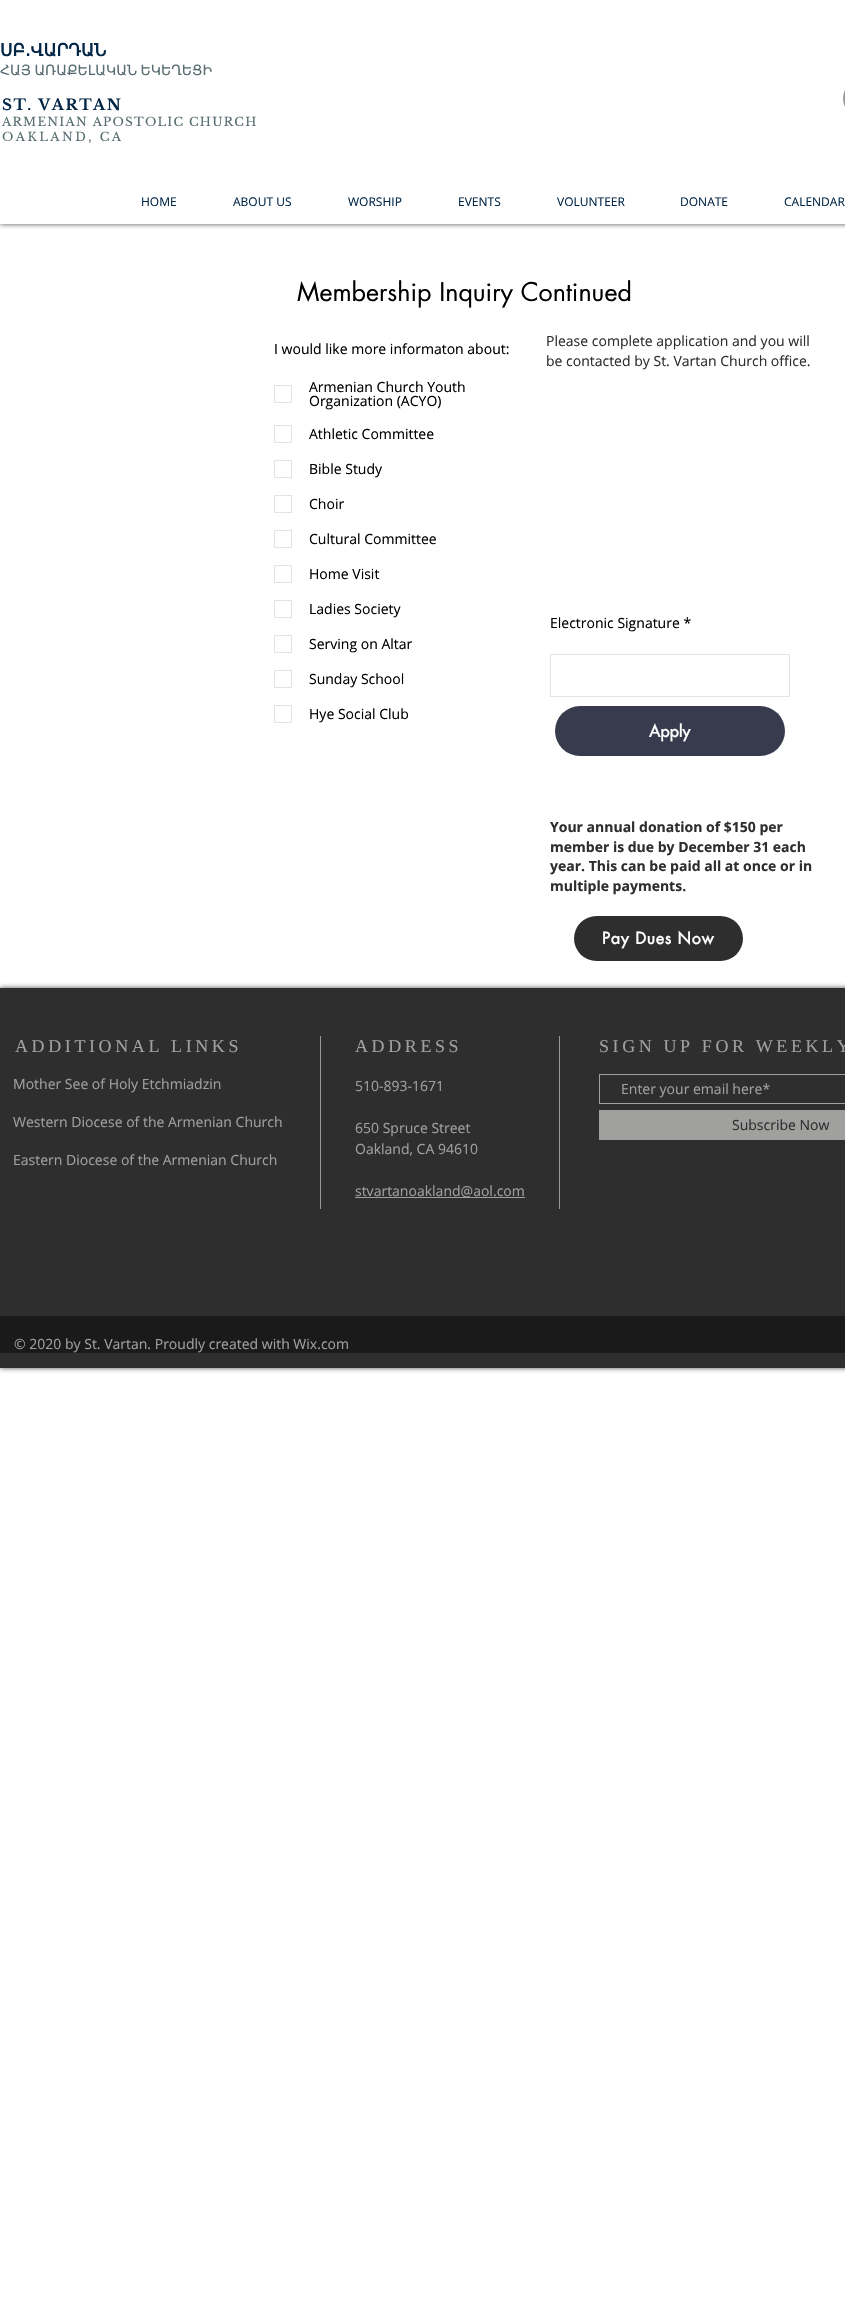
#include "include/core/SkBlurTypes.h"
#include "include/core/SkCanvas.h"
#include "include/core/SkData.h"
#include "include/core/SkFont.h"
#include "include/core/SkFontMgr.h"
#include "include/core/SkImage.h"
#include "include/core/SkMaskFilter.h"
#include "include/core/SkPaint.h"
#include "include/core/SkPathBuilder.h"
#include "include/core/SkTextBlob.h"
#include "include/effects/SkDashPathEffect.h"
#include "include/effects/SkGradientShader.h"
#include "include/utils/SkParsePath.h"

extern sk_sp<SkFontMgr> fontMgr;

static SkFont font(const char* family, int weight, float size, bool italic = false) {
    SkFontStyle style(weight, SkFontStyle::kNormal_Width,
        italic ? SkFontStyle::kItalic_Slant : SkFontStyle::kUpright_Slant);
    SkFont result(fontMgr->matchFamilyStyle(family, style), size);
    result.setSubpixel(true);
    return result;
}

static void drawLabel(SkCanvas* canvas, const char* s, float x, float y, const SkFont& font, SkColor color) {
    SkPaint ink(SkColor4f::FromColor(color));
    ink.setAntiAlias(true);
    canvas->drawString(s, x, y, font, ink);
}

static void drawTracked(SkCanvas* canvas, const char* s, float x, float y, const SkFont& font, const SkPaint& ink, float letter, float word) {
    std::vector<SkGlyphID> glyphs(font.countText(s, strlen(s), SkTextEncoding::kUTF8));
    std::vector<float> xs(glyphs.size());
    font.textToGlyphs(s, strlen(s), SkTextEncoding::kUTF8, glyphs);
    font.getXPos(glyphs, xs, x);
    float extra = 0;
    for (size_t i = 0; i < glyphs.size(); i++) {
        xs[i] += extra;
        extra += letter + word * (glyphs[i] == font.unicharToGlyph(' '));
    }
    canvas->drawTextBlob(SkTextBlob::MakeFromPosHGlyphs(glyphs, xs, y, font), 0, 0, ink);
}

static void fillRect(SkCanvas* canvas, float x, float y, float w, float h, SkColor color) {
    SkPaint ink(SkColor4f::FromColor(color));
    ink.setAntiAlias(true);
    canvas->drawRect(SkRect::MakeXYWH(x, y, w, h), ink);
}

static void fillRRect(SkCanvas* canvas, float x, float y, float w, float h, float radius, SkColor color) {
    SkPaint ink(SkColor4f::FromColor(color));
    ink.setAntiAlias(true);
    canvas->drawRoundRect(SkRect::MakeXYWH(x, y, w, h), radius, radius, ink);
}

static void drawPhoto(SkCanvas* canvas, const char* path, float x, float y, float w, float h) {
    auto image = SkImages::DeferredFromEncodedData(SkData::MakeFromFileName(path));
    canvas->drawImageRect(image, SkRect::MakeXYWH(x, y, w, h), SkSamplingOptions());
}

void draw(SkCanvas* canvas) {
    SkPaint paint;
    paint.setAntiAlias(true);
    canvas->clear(0xFFFFFFFF);
    canvas->save();
    canvas->clipRect(SkRect::MakeXYWH(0, 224, 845, 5));
    paint.setColor(0xB3000000);
    paint.setMaskFilter(SkMaskFilter::MakeBlur(kNormal_SkBlurStyle, 2.5f));
    canvas->drawRect(SkRect::MakeXYWH(0, 0, 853, 224), paint);
    paint.setMaskFilter(nullptr);
    canvas->restore();
    SkFont font1 = font("DejaVu Sans", 700, 17);
    drawLabel(canvas, "ՍԲ․ՎԱՐԴԱՆ", 0, 56, font1, 0xFF012646);
    SkFont font2 = font("DejaVu Sans", 400, 14);
    paint.setColor(0xFF586D71);
    drawTracked(canvas, "ՀԱՅ ԱՌԱՔԵԼԱԿԱՆ ԵԿԵՂԵՑԻ", 0, 75, font2, paint, 0, -1);
    SkFont font3 = font("Libre Baskerville", 700, 15);
    paint.setColor(0xFF012646);
    drawTracked(canvas, "ST. VARTAN", 2, 110, font3, paint, 1.5f, 0);
    SkFont font4 = font("Libre Baskerville", 400, 12);
    paint.setColor(0xFF586D71);
    drawTracked(canvas, "ARMENIAN APOSTOLIC CHURCH", 2, 126, font4, paint, 1.2f, 0);
    drawTracked(canvas, "OAKLAND, CA", 2, 141, font4, paint, 2.4f, 0);
    drawPhoto(canvas, "assets/img1.png", 843, 90, 2, 17);
    SkFont font5 = font("Open Sans", 400, 12);
    drawLabel(canvas, "HOME", 141, 206, font5, 0xFF012646);
    drawLabel(canvas, "ABOUT US", 233, 206, font5, 0xFF012646);
    drawLabel(canvas, "WORSHIP", 348, 206, font5, 0xFF012646);
    drawLabel(canvas, "EVENTS", 458, 206, font5, 0xFF012646);
    drawLabel(canvas, "VOLUNTEER", 557, 206, font5, 0xFF012646);
    drawLabel(canvas, "DONATE", 680, 206, font5, 0xFF012646);
    drawLabel(canvas, "CALENDAR", 784, 206, font5, 0xFF012646);
    SkFont font6 = font("futura", 400, 25);
    drawLabel(canvas, "Membership Inquiry Continued", 297, 301, font6, 0xFF000000);
    SkFont font7 = font("Open Sans", 400, 14);
    drawLabel(canvas, "I would like more informaton about:", 274, 354, font7, 0xFF000000);
    paint.setStroke(true);
    paint.setStrokeWidth(1);
    paint.setColor(0xFFE3E3E3);
    canvas->drawRect(SkRect::MakeXYWH(274.5f, 385.5f, 17, 17), paint);
    drawLabel(canvas, "Armenian Church Youth", 309, 392, font7, 0xFF000000);
    drawLabel(canvas, "Organization (ACYO)", 309, 406, font7, 0xFF000000);
    canvas->drawRect(SkRect::MakeXYWH(274.5f, 425.5f, 17, 17), paint);
    drawLabel(canvas, "Athletic Committee", 309, 439, font7, 0xFF000000);
    canvas->drawRect(SkRect::MakeXYWH(274.5f, 460.5f, 17, 17), paint);
    drawLabel(canvas, "Bible Study", 309, 474, font7, 0xFF000000);
    canvas->drawRect(SkRect::MakeXYWH(274.5f, 495.5f, 17, 17), paint);
    drawLabel(canvas, "Choir", 309, 509, font7, 0xFF000000);
    canvas->drawRect(SkRect::MakeXYWH(274.5f, 530.5f, 17, 17), paint);
    drawLabel(canvas, "Cultural Committee", 309, 544, font7, 0xFF000000);
    canvas->drawRect(SkRect::MakeXYWH(274.5f, 565.5f, 17, 17), paint);
    drawLabel(canvas, "Home Visit", 309, 579, font7, 0xFF000000);
    canvas->drawRect(SkRect::MakeXYWH(274.5f, 600.5f, 17, 17), paint);
    drawLabel(canvas, "Ladies Society", 309, 614, font7, 0xFF000000);
    canvas->drawRect(SkRect::MakeXYWH(274.5f, 635.5f, 17, 17), paint);
    drawLabel(canvas, "Serving on Altar", 309, 649, font7, 0xFF000000);
    canvas->drawRect(SkRect::MakeXYWH(274.5f, 670.5f, 17, 17), paint);
    drawLabel(canvas, "Sunday School", 309, 684, font7, 0xFF000000);
    canvas->drawRect(SkRect::MakeXYWH(274.5f, 705.5f, 17, 17), paint);
    drawLabel(canvas, "Hye Social Club", 309, 719, font7, 0xFF000000);
    drawLabel(canvas, "Electronic Signature *", 550, 628, font7, 0xFF000000);
    canvas->drawRect(SkRect::MakeXYWH(550.5f, 654.5f, 239, 42), paint);
    fillRRect(canvas, 555, 706, 230, 50, 25, 0xFF373B4D);
    SkFont font8 = font("futura", 700, 16);
    drawLabel(canvas, "Apply", 649, 737, font8, 0xFFFFFFFF);
    SkFont font9 = font("Open Sans", 700, 14);
    drawLabel(canvas, "Your annual donation of $150 per", 550, 832, font9, 0xFF2F2E2E);
    drawLabel(canvas, "member is due by December 31 each", 550, 852, font9, 0xFF2F2E2E);
    drawLabel(canvas, "year. This can be paid all at once or in", 550, 871, font9, 0xFF2F2E2E);
    drawLabel(canvas, "multiple payments.", 550, 891, font9, 0xFF2F2E2E);
    fillRRect(canvas, 574, 916, 169, 45, 22.5f, 0xFF2F2E2E);
    paint.setStroke(false);
    paint.setColor(0xFFFFFFFF);
    drawTracked(canvas, "Pay Dues Now", 602, 944, font8, paint, 0.75f, 0);
    drawLabel(canvas, "Please complete application and you will", 546, 346, font7, 0xFF2F2E2E);
    drawLabel(canvas, "be contacted by St. Vartan Church office.", 546, 366, font7, 0xFF2F2E2E);
    paint.setColor(0xB3000000);
    paint.setMaskFilter(SkMaskFilter::MakeBlur(kNormal_SkBlurStyle, 2.5f));
    canvas->drawRect(SkRect::MakeXYWH(0, 988, 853, 380), paint);
    paint.setMaskFilter(nullptr);
    fillRect(canvas, 0, 988, 845, 380, 0xFF2F2E2E);
    SkFont font10 = font("Liberation Serif", 400, 18);
    paint.setColor(0xFFA0A09F);
    drawTracked(canvas, "ADDITIONAL LINKS", 15, 1052, font10, paint, 3.6f, 0);
    fillRect(canvas, 320, 1036, 1, 173, 0xFF999999);
    drawTracked(canvas, "ADDRESS", 355, 1052, font10, paint, 3.6f, 0);
    fillRect(canvas, 559, 1036, 1, 173, 0xFF999999);
    drawTracked(canvas, "SIGN UP FOR WEEKLY", 599, 1052, font10, paint, 3.6f, 0);
    paint.setStroke(true);
    canvas->drawRect(SkRect::MakeXYWH(599.5f, 1074.5f, 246, 29), paint);
    drawLabel(canvas, "Enter your email here*", 621, 1094, font7, 0xFFA0A09F);
    fillRect(canvas, 599, 1110, 246, 30, 0xFFA0A09F);
    drawLabel(canvas, "Subscribe Now", 732, 1130, font7, 0xFF2F2E2E);
    drawLabel(canvas, "Mother See of Holy Etchmiadzin", 13, 1089, font7, 0xFFA0A09F);
    drawLabel(canvas, "Western Diocese of the Armenian Church", 13, 1127, font7, 0xFFA0A09F);
    drawLabel(canvas, "Eastern Diocese of the Armenian Church", 13, 1165, font7, 0xFFA0A09F);
    drawLabel(canvas, "510-893-1671", 355, 1091, font7, 0xFFA0A09F);
    drawLabel(canvas, "650 Spruce Street", 355, 1133, font7, 0xFFA0A09F);
    drawLabel(canvas, "Oakland, CA 94610", 355, 1154, font7, 0xFFA0A09F);
    fillRect(canvas, 355, 1197, 170, 1, 0xFFA0A09F);
    drawLabel(canvas, "stvartanoakland@aol.com", 355, 1196, font7, 0xFFA0A09F);
    fillRect(canvas, 0, 1316, 845, 37, 0xFF1B1A1A);
    drawLabel(canvas, "© 2020 by St. Vartan. Proudly created with Wix.com", 14, 1349, font7, 0xFFA0A09F);
}
